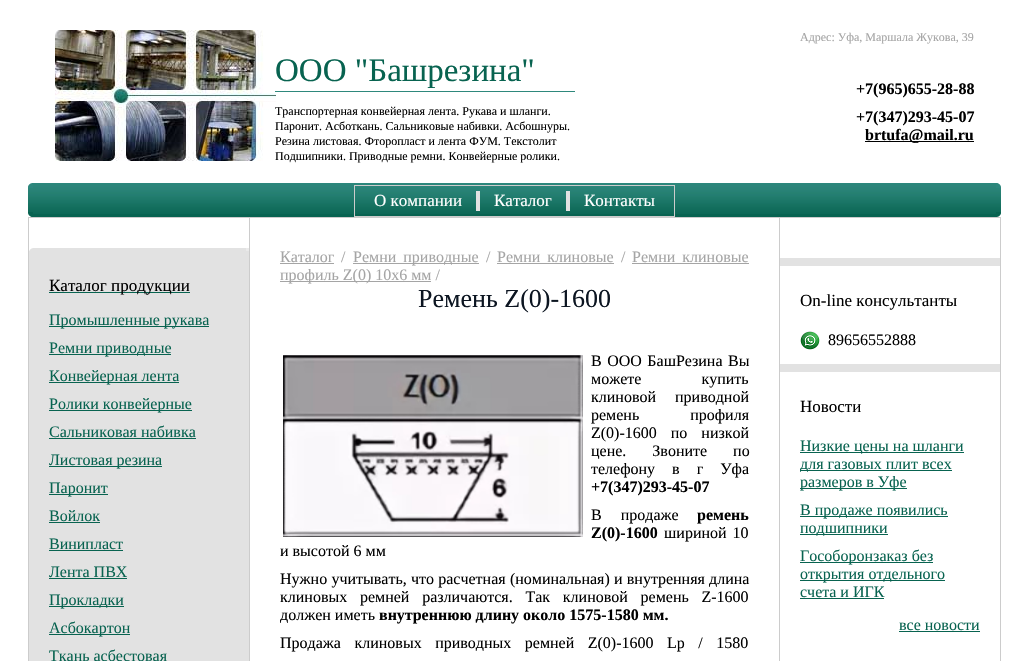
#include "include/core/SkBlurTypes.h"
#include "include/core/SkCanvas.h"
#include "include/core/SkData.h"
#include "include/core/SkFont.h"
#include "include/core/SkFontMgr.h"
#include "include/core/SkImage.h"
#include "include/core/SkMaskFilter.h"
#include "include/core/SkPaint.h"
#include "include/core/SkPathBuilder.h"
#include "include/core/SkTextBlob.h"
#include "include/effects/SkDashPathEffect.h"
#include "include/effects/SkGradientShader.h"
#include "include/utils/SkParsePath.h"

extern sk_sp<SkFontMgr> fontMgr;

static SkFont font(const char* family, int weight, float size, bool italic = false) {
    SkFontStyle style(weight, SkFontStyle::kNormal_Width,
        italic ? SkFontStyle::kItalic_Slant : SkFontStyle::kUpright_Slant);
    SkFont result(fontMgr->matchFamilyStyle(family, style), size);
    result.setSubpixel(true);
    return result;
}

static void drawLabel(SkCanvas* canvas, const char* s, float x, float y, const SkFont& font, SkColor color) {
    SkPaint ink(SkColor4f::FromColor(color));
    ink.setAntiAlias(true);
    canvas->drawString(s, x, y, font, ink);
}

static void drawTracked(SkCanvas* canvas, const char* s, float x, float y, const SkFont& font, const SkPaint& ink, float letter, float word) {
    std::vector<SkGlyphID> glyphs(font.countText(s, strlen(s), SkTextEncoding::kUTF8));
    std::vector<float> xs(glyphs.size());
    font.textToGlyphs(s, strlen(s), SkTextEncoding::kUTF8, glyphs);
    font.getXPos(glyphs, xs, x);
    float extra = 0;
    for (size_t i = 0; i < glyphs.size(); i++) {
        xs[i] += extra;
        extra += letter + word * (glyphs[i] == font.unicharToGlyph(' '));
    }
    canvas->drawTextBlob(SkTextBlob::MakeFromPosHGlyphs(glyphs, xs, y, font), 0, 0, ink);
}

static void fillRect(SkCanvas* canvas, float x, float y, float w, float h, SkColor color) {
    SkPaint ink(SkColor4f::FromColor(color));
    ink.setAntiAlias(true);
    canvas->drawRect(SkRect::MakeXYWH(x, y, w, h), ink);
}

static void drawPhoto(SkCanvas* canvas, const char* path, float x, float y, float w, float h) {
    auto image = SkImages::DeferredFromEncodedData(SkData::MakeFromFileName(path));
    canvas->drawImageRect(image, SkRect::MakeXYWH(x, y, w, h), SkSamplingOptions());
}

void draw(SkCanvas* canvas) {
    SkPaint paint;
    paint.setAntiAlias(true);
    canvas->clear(0xFFFFFFFF);
    drawPhoto(canvas, "assets/img1.png", 55, 30, 221, 131);
    SkFont font1 = font("Liberation Serif", 400, 33);
    drawLabel(canvas, "ООО \"Башрезина\"", 275, 81, font1, 0xFF086350);
    fillRect(canvas, 275, 91, 300, 1, 0xFF2E887C);
    SkFont font2 = font("Liberation Serif", 400, 12);
    drawLabel(canvas, "Транспортерная конвейерная лента. Рукава и шланги.", 275, 115, font2, 0xFF000000);
    drawLabel(canvas, "Паронит. Асботкань. Сальниковые набивки. Асбошнуры.", 275, 130, font2, 0xFF000000);
    drawLabel(canvas, "Резина листовая. Фторопласт и лента ФУМ. Текстолит", 275, 145, font2, 0xFF000000);
    drawLabel(canvas, "Подшипники. Приводные ремни. Конвейерные ролики.", 275, 160, font2, 0xFF000000);
    drawLabel(canvas, "Адрес: Уфа, Маршала Жукова, 39", 800, 41, font2, 0xFFA5A5A5);
    SkFont font3 = font("Liberation Serif", 700, 16);
    drawLabel(canvas, "+7(965)655-28-88", 856, 94, font3, 0xFF000000);
    drawLabel(canvas, "+7(347)293-45-07", 856, 122, font3, 0xFF000000);
    fillRect(canvas, 865, 141, 109, 1, 0xFF000000);
    drawLabel(canvas, "brtufa@mail.ru", 865, 140, font3, 0xFF000000);
    fillRect(canvas, 33, 214, 963, 3, 0xFF086351);
    drawPhoto(canvas, "assets/img2.png", 28, 183, 973, 31);
    drawPhoto(canvas, "assets/img3.png", 996, 212, 5, 5);
    drawPhoto(canvas, "assets/img4.png", 28, 212, 5, 5);
    drawPhoto(canvas, "assets/img5.png", 996, 183, 5, 5);
    drawPhoto(canvas, "assets/img6.png", 28, 183, 5, 5);
    fillRect(canvas, 354, 185, 321, 1, 0xFFCCCCCC);
    fillRect(canvas, 674, 185, 1, 32, 0xFFCCCCCC);
    fillRect(canvas, 354, 216, 321, 1, 0xFFCCCCCC);
    fillRect(canvas, 354, 185, 1, 32, 0xFFCCCCCC);
    SkFont font4 = font("Liberation Serif", 400, 17);
    drawLabel(canvas, "О компании", 374, 206, font4, 0xFFFFFFFF);
    fillRect(canvas, 476, 191, 4, 20, 0xFFE2E2E2);
    drawLabel(canvas, "Каталог", 494, 206, font4, 0xFFFFFFFF);
    fillRect(canvas, 566, 191, 4, 20, 0xFFE2E2E2);
    drawLabel(canvas, "Контакты", 584, 206, font4, 0xFFFFFFFF);
    fillRect(canvas, 779, 217, 222, 1, 0xFFCCCCCC);
    fillRect(canvas, 779, 217, 1, 444, 0xFFCCCCCC);
    fillRect(canvas, 249, 217, 531, 1, 0xFFCCCCCC);
    fillRect(canvas, 249, 217, 1, 444, 0xFFCCCCCC);
    fillRect(canvas, 28, 217, 222, 1, 0xFFCCCCCC);
    fillRect(canvas, 28, 217, 1, 444, 0xFFCCCCCC);
    fillRect(canvas, 29, 248, 220, 413, 0xFFE2E2E2);
    fillRect(canvas, 246, 248, 3, 3, 0xFFEAEAEA);
    drawPhoto(canvas, "assets/img7.png", 29, 248, 4, 3);
    fillRect(canvas, 49, 292, 141, 1, 0xFF086350);
    drawLabel(canvas, "Каталог продукции", 49, 291, font4, 0xFF000000);
    fillRect(canvas, 49, 326, 160, 1, 0xFF086350);
    SkFont font5 = font("Liberation Serif", 400, 16);
    drawLabel(canvas, "Промышленные рукава", 49, 325, font5, 0xFF086350);
    fillRect(canvas, 49, 354, 122, 1, 0xFF086350);
    drawLabel(canvas, "Ремни приводные", 49, 353, font5, 0xFF086350);
    fillRect(canvas, 49, 382, 130, 1, 0xFF086350);
    drawLabel(canvas, "Конвейерная лента", 49, 381, font5, 0xFF086350);
    fillRect(canvas, 49, 410, 143, 1, 0xFF086350);
    drawLabel(canvas, "Ролики конвейерные", 49, 409, font5, 0xFF086350);
    drawLabel(canvas, "Сальниковая набивка", 49, 437, font5, 0xFF086350);
    fillRect(canvas, 49, 438, 147, 1, 0xFF086350);
    fillRect(canvas, 49, 466, 113, 1, 0xFF086350);
    drawLabel(canvas, "Листовая резина", 49, 465, font5, 0xFF086350);
    fillRect(canvas, 49, 494, 59, 1, 0xFF086350);
    drawLabel(canvas, "Паронит", 49, 493, font5, 0xFF086350);
    drawLabel(canvas, "Войлок", 49, 521, font5, 0xFF086350);
    fillRect(canvas, 49, 522, 51, 1, 0xFF086350);
    drawLabel(canvas, "Винипласт", 49, 549, font5, 0xFF086350);
    fillRect(canvas, 49, 550, 74, 1, 0xFF086350);
    drawLabel(canvas, "Лента ПВХ", 49, 577, font5, 0xFF086350);
    fillRect(canvas, 49, 578, 78, 1, 0xFF086350);
    fillRect(canvas, 49, 606, 75, 1, 0xFF086350);
    drawLabel(canvas, "Прокладки", 49, 605, font5, 0xFF086350);
    fillRect(canvas, 49, 634, 81, 1, 0xFF086350);
    drawLabel(canvas, "Асбокартон", 49, 633, font5, 0xFF086350);
    drawLabel(canvas, "Ткань асбестовая", 49, 661, font5, 0xFF086350);
    drawLabel(canvas, "Каталог", 280, 262, font5, 0xFFA5A5A5);
    fillRect(canvas, 280, 263, 54, 1, 0xFFA5A5A5);
    drawLabel(canvas, "/", 341, 262, font5, 0xFFA5A5A5);
    fillRect(canvas, 353, 263, 126, 1, 0xFFA5A5A5);
    paint.setColor(0xFFA5A5A5);
    drawTracked(canvas, "Ремни приводные", 353, 262, font5, paint, 0, 3);
    drawLabel(canvas, "/", 486, 262, font5, 0xFFA5A5A5);
    drawTracked(canvas, "Ремни клиновые", 497, 262, font5, paint, 0, 3);
    fillRect(canvas, 497, 263, 117, 1, 0xFFA5A5A5);
    drawLabel(canvas, "/", 621, 262, font5, 0xFFA5A5A5);
    drawTracked(canvas, "Ремни клиновые", 632, 262, font5, paint, 0, 3);
    fillRect(canvas, 632, 263, 117, 1, 0xFFA5A5A5);
    fillRect(canvas, 280, 281, 151, 1, 0xFFA5A5A5);
    drawLabel(canvas, "профиль Z(0) 10х6 мм /", 280, 280, font5, 0xFFA5A5A5);
    SkFont font6 = font("Liberation Serif", 400, 26);
    drawLabel(canvas, "Ремень Z(0)-1600", 418, 307, font6, 0xFF0C1521);
    drawPhoto(canvas, "assets/img8.png", 283, 355, 300, 182);
    paint.setColor(0xFF000000);
    drawTracked(canvas, "В ООО БашРезина Вы", 591, 366, font5, paint, 0, 1.5f);
    drawTracked(canvas, "можете купить", 591, 384, font5, paint, 0, 56);
    drawTracked(canvas, "клиновой приводной", 591, 402, font5, paint, 0, 15);
    drawTracked(canvas, "ремень профиля", 591, 420, font5, paint, 0, 47);
    drawTracked(canvas, "Z(0)-1600 по низкой", 591, 438, font5, paint, 0, 10);
    drawTracked(canvas, "цене. Звоните по", 591, 456, font5, paint, 0, 22);
    drawTracked(canvas, "телефону в г Уфа", 591, 474, font5, paint, 0, 13);
    drawLabel(canvas, "+7(347)293-45-07", 591, 492, font3, 0xFF000000);
    drawTracked(canvas, "В продаже", 591, 520, font5, paint, 0, 15);
    drawLabel(canvas, "ремень", 697, 520, font3, 0xFF000000);
    drawLabel(canvas, "Z(0)-1600", 591, 538, font3, 0xFF000000);
    drawTracked(canvas, "шириной 10", 664, 538, font5, paint, 0, 2);
    drawLabel(canvas, "и высотой 6 мм", 280, 556, font5, 0xFF000000);
    drawTracked(canvas, "Нужно учитывать, что расчетная (номинальная) и внутренняя длина", 280, 584, font5, paint, 0, 0.25f);
    drawTracked(canvas, "клиновых ремней различаются. Так клиновой ремень Z-1600", 280, 602, font5, paint, 0, 8.75f);
    drawLabel(canvas, "должен иметь", 280, 620, font5, 0xFF000000);
    drawLabel(canvas, "внутреннюю длину около 1575-1580 мм.", 379, 620, font3, 0xFF000000);
    drawTracked(canvas, "Продажа клиновых приводных ремней Z(0)-1600 Lp / 1580", 280, 648, font5, paint, 0, 9.5f);
    fillRect(canvas, 1000, 217, 1, 444, 0xFFCCCCCC);
    fillRect(canvas, 780, 258, 220, 8, 0xFFE2E2E2);
    drawLabel(canvas, "On-line консультанты", 800, 306, font4, 0xFF000000);
    drawPhoto(canvas, "assets/img9.png", 800, 331, 20, 19);
    drawLabel(canvas, "89656552888", 828, 345, font5, 0xFF000000);
    fillRect(canvas, 780, 364, 220, 8, 0xFFE2E2E2);
    drawLabel(canvas, "Новости", 800, 412, font4, 0xFF000000);
    fillRect(canvas, 800, 452, 164, 1, 0xFF086350);
    drawLabel(canvas, "Низкие цены на шланги", 800, 451, font5, 0xFF086350);
    fillRect(canvas, 800, 470, 152, 1, 0xFF086350);
    drawLabel(canvas, "для газовых плит всех", 800, 469, font5, 0xFF086350);
    fillRect(canvas, 800, 488, 107, 1, 0xFF086350);
    drawLabel(canvas, "размеров в Уфе", 800, 487, font5, 0xFF086350);
    fillRect(canvas, 800, 516, 148, 1, 0xFF086350);
    drawLabel(canvas, "В продаже появились", 800, 515, font5, 0xFF086350);
    fillRect(canvas, 800, 534, 88, 1, 0xFF086350);
    drawLabel(canvas, "подшипники", 800, 533, font5, 0xFF086350);
    fillRect(canvas, 800, 562, 133, 1, 0xFF086350);
    drawLabel(canvas, "Гособоронзаказ без", 800, 561, font5, 0xFF086350);
    fillRect(canvas, 800, 580, 145, 1, 0xFF086350);
    drawLabel(canvas, "открытия отдельного", 800, 579, font5, 0xFF086350);
    drawLabel(canvas, "счета и ИГК", 800, 597, font5, 0xFF086350);
    fillRect(canvas, 800, 598, 84, 1, 0xFF086350);
    drawLabel(canvas, "все новости", 899, 630, font5, 0xFF086350);
    fillRect(canvas, 899, 631, 81, 1, 0xFF086350);
}
